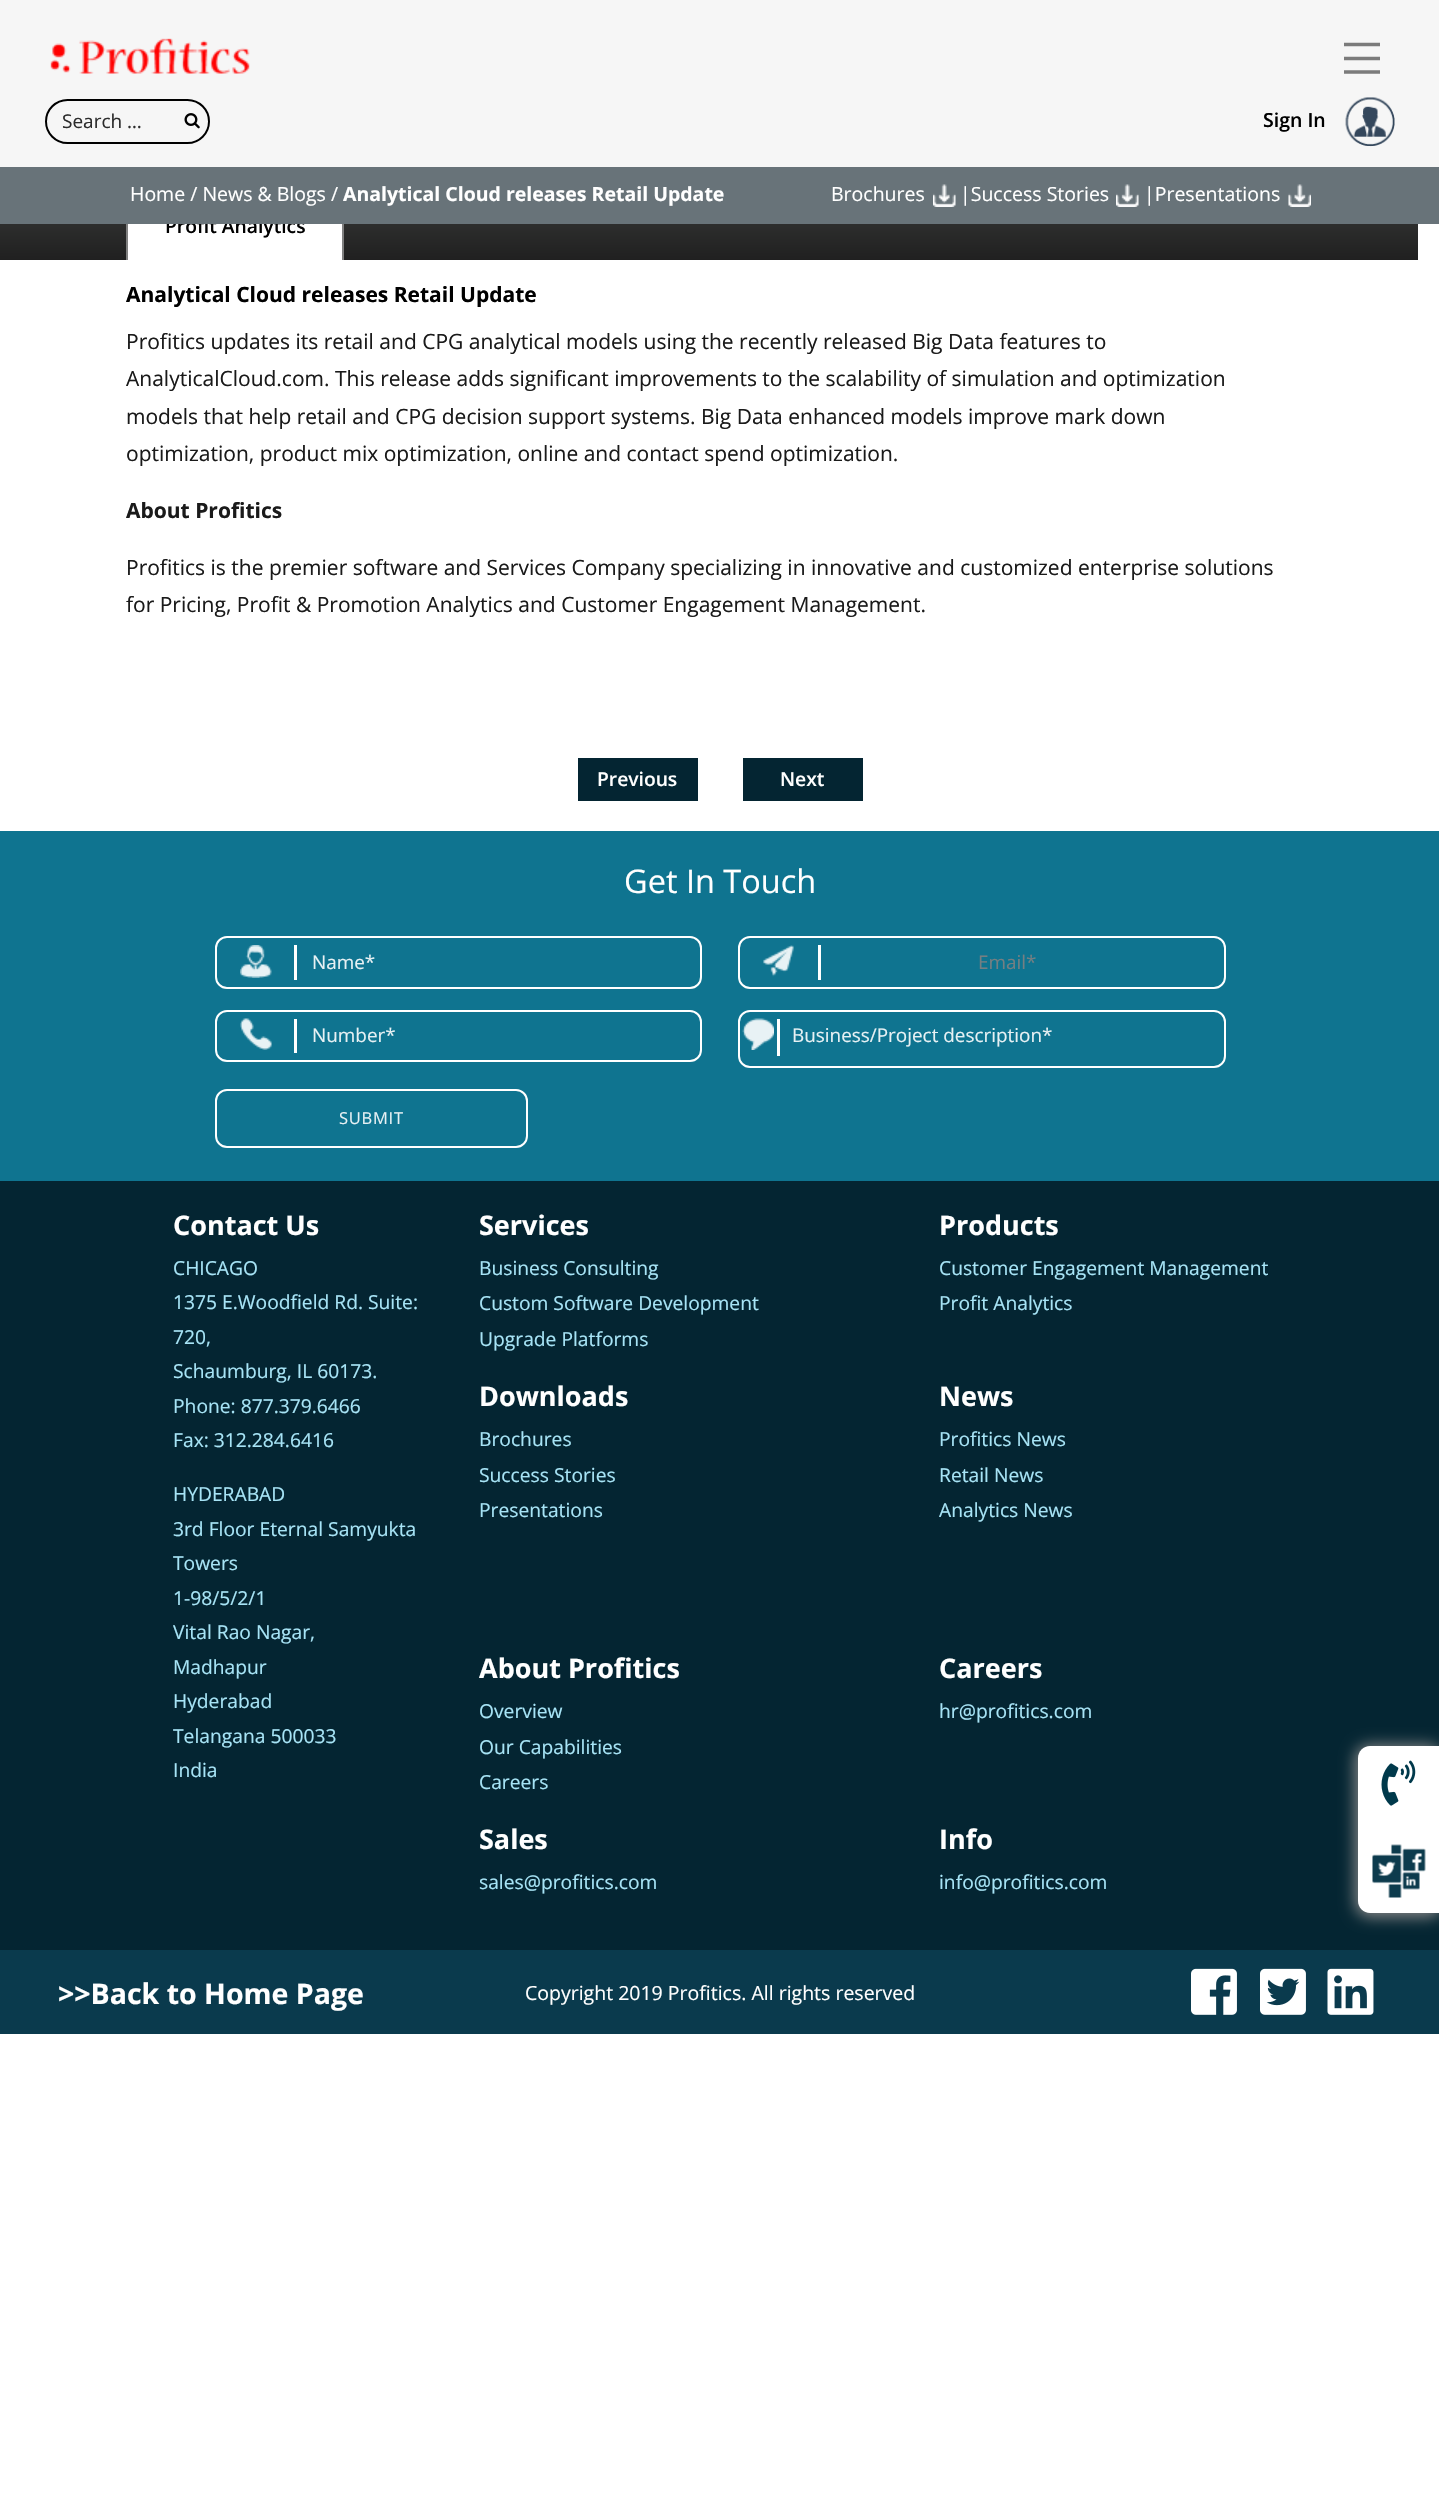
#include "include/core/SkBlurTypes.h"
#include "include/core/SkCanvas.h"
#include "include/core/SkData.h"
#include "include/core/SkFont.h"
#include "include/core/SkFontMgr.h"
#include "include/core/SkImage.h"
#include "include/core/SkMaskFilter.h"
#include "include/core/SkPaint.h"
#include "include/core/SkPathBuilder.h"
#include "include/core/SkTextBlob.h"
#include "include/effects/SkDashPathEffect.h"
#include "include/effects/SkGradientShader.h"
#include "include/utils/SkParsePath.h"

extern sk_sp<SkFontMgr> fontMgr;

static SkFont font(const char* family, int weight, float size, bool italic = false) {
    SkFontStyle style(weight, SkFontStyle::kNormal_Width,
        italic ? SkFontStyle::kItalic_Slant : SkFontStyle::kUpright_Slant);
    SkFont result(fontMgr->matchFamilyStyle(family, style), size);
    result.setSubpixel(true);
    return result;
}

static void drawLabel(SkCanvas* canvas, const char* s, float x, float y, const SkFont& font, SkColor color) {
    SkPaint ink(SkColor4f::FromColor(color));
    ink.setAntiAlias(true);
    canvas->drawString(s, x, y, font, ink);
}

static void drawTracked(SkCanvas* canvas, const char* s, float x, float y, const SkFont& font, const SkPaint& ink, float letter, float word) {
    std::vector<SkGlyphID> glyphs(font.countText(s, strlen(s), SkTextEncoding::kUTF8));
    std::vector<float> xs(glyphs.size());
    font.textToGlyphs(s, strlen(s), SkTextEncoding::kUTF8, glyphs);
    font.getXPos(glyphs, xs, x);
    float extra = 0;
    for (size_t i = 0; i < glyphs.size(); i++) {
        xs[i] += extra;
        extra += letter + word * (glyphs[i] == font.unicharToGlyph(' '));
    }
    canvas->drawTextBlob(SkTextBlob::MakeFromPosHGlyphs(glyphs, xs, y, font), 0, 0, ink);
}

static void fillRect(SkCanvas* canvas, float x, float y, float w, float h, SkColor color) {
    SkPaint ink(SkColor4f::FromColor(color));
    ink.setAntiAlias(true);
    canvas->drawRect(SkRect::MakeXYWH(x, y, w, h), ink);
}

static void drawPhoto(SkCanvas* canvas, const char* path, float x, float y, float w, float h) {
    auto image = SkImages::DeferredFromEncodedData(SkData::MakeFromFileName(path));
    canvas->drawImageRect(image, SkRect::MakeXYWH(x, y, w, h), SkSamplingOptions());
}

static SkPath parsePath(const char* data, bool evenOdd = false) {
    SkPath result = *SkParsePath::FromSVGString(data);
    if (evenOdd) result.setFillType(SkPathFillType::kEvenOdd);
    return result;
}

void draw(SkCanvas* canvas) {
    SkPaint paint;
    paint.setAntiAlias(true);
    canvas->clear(0xFFFFFFFF);
    fillRect(canvas, 0, 0, 1439, 167, 0xFFF6F6F6);
    drawPhoto(canvas, "assets/img1.png", 50, 38, 200, 36);
    canvas->save();
    canvas->clipRect(SkRect::MakeXYWH(1344, 41, 36, 36));
    paint.setStroke(true);
    paint.setStrokeWidth(3.4f);
    paint.setStrokeCap(SkPaint::kRound_Cap);
    paint.setColor(0xFF7B7B7B);
    canvas->drawPath(parsePath("M1343.5 44.5H1380.5M1343.5 58.5H1380.5M1343.5 72H1380.5"), paint);
    canvas->restore();
    paint.setStrokeWidth(2);
    paint.setStrokeCap(SkPaint::kButt_Cap);
    paint.setColor(0xFF000000);
    canvas->drawRoundRect(SkRect::MakeXYWH(46, 100, 163, 43), 21.5f, 21.5f, paint);
    SkFont font1 = font("Open Sans", 400, 19);
    drawLabel(canvas, "Search …", 62, 128, font1, 0xFF2C2C2C);
    drawPhoto(canvas, "assets/img2.png", 184, 113, 16, 16);
    SkFont font2 = font("Open Sans", 600, 19.5f);
    drawLabel(canvas, "Sign In", 1263, 127, font2, 0xFF000000);
    drawPhoto(canvas, "assets/img3.png", 1345, 97, 50, 50);
    fillRect(canvas, 0, 167, 1439, 57, 0xFF687379);
    SkFont font3 = font("Open Sans", 400, 19.5f);
    drawLabel(canvas, "Home / News & Blogs /", 130, 201, font3, 0xFFFFFFFF);
    SkFont font4 = font("Open Sans", 700, 19.5f);
    drawLabel(canvas, "Analytical Cloud releases Retail Update", 343, 201, font4, 0xFFFFFFFF);
    drawLabel(canvas, "Brochures", 831, 201, font3, 0xFFFFFFFF);
    drawPhoto(canvas, "assets/img4.png", 933, 184, 23, 23);
    drawLabel(canvas, "|Success Stories", 960, 201, font3, 0xFFFFFFFF);
    drawPhoto(canvas, "assets/img5.png", 1116, 184, 23, 23);
    drawLabel(canvas, "|Presentations", 1144, 201, font3, 0xFFFFFFFF);
    drawPhoto(canvas, "assets/img6.png", 1288, 184, 23, 23);
    paint.setStroke(false);
    {
        const SkColor colors[] = {0xFF383938, 0xFF202020};
        const float stops[] = {0, 1};
        const SkPoint ends[] = {{698, 193}, {698, 260}};
        paint.setShader(SkGradientShader::MakeLinear(ends, colors, stops, 2, SkTileMode::kClamp));
        paint.setAlpha(255);
    }
    canvas->drawRect(SkRect::MakeXYWH(0, 224, 1418, 36), paint);
    fillRect(canvas, 128, 224, 214, 36, 0xFFFFFFFF);
    fillRect(canvas, 342, 224, 2, 36, 0xFF808080);
    fillRect(canvas, 126, 224, 2, 36, 0xFF808080);
    canvas->save();
    canvas->clipRect(SkRect::MakeXYWH(0, 224, 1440, 1810));
    SkFont font5 = font("Open Sans", 600, 19.25f);
    drawLabel(canvas, "Profit Analytics", 165, 233, font5, 0xFF000000);
    canvas->restore();
    SkFont font6 = font("Open Sans", 700, 21);
    drawLabel(canvas, "Analytical Cloud releases Retail Update", 126, 302, font6, 0xFF000000);
    SkFont font7 = font("Open Sans", 400, 21);
    drawLabel(canvas, "Profitics updates its retail and CPG analytical models using the recently released Big Data features to", 126, 349, font7, 0xFF1A1A1A);
    drawLabel(canvas, "AnalyticalCloud.com. This release adds significant improvements to the scalability of simulation and optimization", 126, 386, font7, 0xFF1A1A1A);
    drawLabel(canvas, "models that help retail and CPG decision support systems. Big Data enhanced models improve mark down", 126, 424, font7, 0xFF1A1A1A);
    drawLabel(canvas, "optimization, product mix optimization, online and contact spend optimization.", 126, 461, font7, 0xFF1A1A1A);
    drawLabel(canvas, "About Profitics", 126, 518, font6, 0xFF1A1A1A);
    drawLabel(canvas, "Profitics is the premier software and Services Company specializing in innovative and customized enterprise solutions", 126, 575, font7, 0xFF1A1A1A);
    drawLabel(canvas, "for Pricing, Profit & Promotion Analytics and Customer Engagement Management.", 126, 612, font7, 0xFF1A1A1A);
    fillRect(canvas, 578, 758, 120, 43, 0xFF042532);
    drawLabel(canvas, "Previous", 597, 786, font5, 0xFFFFFFFF);
    fillRect(canvas, 743, 758, 120, 43, 0xFF042532);
    drawLabel(canvas, "Next", 780, 786, font5, 0xFFFFFFFF);
    fillRect(canvas, 0, 831, 1439, 350, 0xFF0F7490);
    SkFont font8 = font("Open Sans", 400, 32.5f);
    drawLabel(canvas, "Get In Touch", 624, 893, font8, 0xFFFFFFFF);
    paint.setStroke(true);
    paint.setShader(nullptr);
    paint.setColor(0xFFFFFFFF);
    canvas->drawRoundRect(SkRect::MakeXYWH(216, 937, 485, 51), 11, 11, paint);
    fillRect(canvas, 294, 945, 3, 35, 0xFFFFFFFF);
    drawPhoto(canvas, "assets/img7.png", 240, 945, 32, 33);
    SkFont font9 = font("Open Sans", 400, 18.9f);
    drawLabel(canvas, "Name*", 312, 969, font9, 0xFFE7F1F4);
    canvas->drawRoundRect(SkRect::MakeXYWH(739, 937, 486, 51), 11, 11, paint);
    fillRect(canvas, 818, 945, 3, 35, 0xFFFFFFFF);
    drawPhoto(canvas, "assets/img8.png", 763, 945, 31, 32);
    drawLabel(canvas, "Email*", 978, 969, font9, 0xFF757F82);
    canvas->drawRoundRect(SkRect::MakeXYWH(216, 1011, 485, 50), 11, 11, paint);
    fillRect(canvas, 294, 1019, 3, 34, 0xFFFFFFFF);
    drawPhoto(canvas, "assets/img9.png", 240, 1018, 32, 32);
    drawLabel(canvas, "Number*", 312, 1042, font9, 0xFFE7F1F4);
    canvas->drawRoundRect(SkRect::MakeXYWH(739, 1011, 486, 56), 11, 11, paint);
    fillRect(canvas, 777, 1019, 3, 37, 0xFFFFFFFF);
    drawPhoto(canvas, "assets/img10.png", 742, 1018, 32, 32);
    drawLabel(canvas, "Business/Project description*", 792, 1042, font9, 0xFFE7F1F4);
    canvas->drawRoundRect(SkRect::MakeXYWH(216, 1090, 311, 57), 11, 11, paint);
    SkFont font10 = font("Open Sans", 400, 16.5f);
    paint.setStroke(false);
    paint.setColor(0xFFE7F1F4);
    drawTracked(canvas, "SUBMIT", 339, 1124, font10, paint, 0.75f, 0);
    fillRect(canvas, 0, 1181, 1439, 769, 0xFF042532);
    SkFont font11 = font("Open Sans", 700, 27);
    drawLabel(canvas, "Contact Us", 173, 1235, font11, 0xFFFFFFFF);
    SkFont font12 = font("Open Sans", 400, 19.25f);
    drawLabel(canvas, "CHICAGO", 173, 1275, font12, 0xFFA7E4F6);
    drawLabel(canvas, "1375 E.Woodfield Rd. Suite:", 173, 1309, font12, 0xFFA7E4F6);
    drawLabel(canvas, "720,", 173, 1344, font12, 0xFFA7E4F6);
    drawLabel(canvas, "Schaumburg, IL 60173.", 173, 1378, font12, 0xFFA7E4F6);
    drawLabel(canvas, "Phone: 877.379.6466", 173, 1413, font12, 0xFFA7E4F6);
    drawLabel(canvas, "Fax: 312.284.6416", 173, 1447, font12, 0xFFA7E4F6);
    drawLabel(canvas, "HYDERABAD", 173, 1501, font12, 0xFFA7E4F6);
    drawLabel(canvas, "3rd Floor Eternal Samyukta", 173, 1536, font12, 0xFFA7E4F6);
    drawLabel(canvas, "Towers", 173, 1570, font12, 0xFFA7E4F6);
    drawLabel(canvas, "1-98/5/2/1", 173, 1605, font12, 0xFFA7E4F6);
    drawLabel(canvas, "Vital Rao Nagar,", 173, 1639, font12, 0xFFA7E4F6);
    drawLabel(canvas, "Madhapur", 173, 1674, font12, 0xFFA7E4F6);
    drawLabel(canvas, "Hyderabad", 173, 1708, font12, 0xFFA7E4F6);
    drawLabel(canvas, "Telangana 500033", 173, 1743, font12, 0xFFA7E4F6);
    drawLabel(canvas, "India", 173, 1777, font12, 0xFFA7E4F6);
    drawLabel(canvas, "Services", 479, 1235, font11, 0xFFFFFFFF);
    drawLabel(canvas, "Business Consulting", 479, 1275, font12, 0xFFA7E4F6);
    drawLabel(canvas, "Custom Software Development", 479, 1310, font12, 0xFFA7E4F6);
    drawLabel(canvas, "Upgrade Platforms", 479, 1346, font12, 0xFFA7E4F6);
    drawLabel(canvas, "Products", 939, 1235, font11, 0xFFFFFFFF);
    drawLabel(canvas, "Customer Engagement Management", 939, 1275, font12, 0xFFA7E4F6);
    drawLabel(canvas, "Profit Analytics", 939, 1310, font12, 0xFFA7E4F6);
    drawLabel(canvas, "Downloads", 479, 1406, font11, 0xFFFFFFFF);
    drawLabel(canvas, "Brochures", 479, 1446, font12, 0xFFA7E4F6);
    drawLabel(canvas, "Success Stories", 479, 1482, font12, 0xFFA7E4F6);
    drawLabel(canvas, "Presentations", 479, 1517, font12, 0xFFA7E4F6);
    drawLabel(canvas, "News", 939, 1406, font11, 0xFFFFFFFF);
    drawLabel(canvas, "Profitics News", 939, 1446, font12, 0xFFA7E4F6);
    drawLabel(canvas, "Retail News", 939, 1482, font12, 0xFFA7E4F6);
    drawLabel(canvas, "Analytics News", 939, 1517, font12, 0xFFA7E4F6);
    drawLabel(canvas, "About Profitics", 479, 1678, font11, 0xFFFFFFFF);
    drawLabel(canvas, "Overview", 479, 1718, font12, 0xFFA7E4F6);
    drawLabel(canvas, "Our Capabilities", 479, 1754, font12, 0xFFA7E4F6);
    drawLabel(canvas, "Careers", 479, 1789, font12, 0xFFA7E4F6);
    drawLabel(canvas, "Careers", 939, 1678, font11, 0xFFFFFFFF);
    drawLabel(canvas, "hr@profitics.com", 939, 1718, font12, 0xFFA7E4F6);
    drawLabel(canvas, "Sales", 479, 1849, font11, 0xFFFFFFFF);
    drawLabel(canvas, "sales@profitics.com", 479, 1889, font12, 0xFFA7E4F6);
    drawLabel(canvas, "Info", 939, 1849, font11, 0xFFFFFFFF);
    drawLabel(canvas, "info@profitics.com", 939, 1889, font12, 0xFFA7E4F6);
    fillRect(canvas, 0, 1950, 1439, 84, 0xFF0A3A4D);
    SkFont font13 = font("Open Sans", 700, 28.5f);
    drawLabel(canvas, ">>Back to Home Page", 58, 2004, font13, 0xFFFFFFFF);
    drawLabel(canvas, "Copyright 2019 Profitics. All rights reserved", 525, 2000, font3, 0xFFFFFFFF);
    drawPhoto(canvas, "assets/img11.png", 1191, 1968, 46, 47);
    drawPhoto(canvas, "assets/img12.png", 1260, 1968, 46, 47);
    drawPhoto(canvas, "assets/img13.png", 1327, 1968, 47, 47);
    paint.setColor(0xFF888888);
    paint.setMaskFilter(SkMaskFilter::MakeBlur(kNormal_SkBlurStyle, 7.5f));
    canvas->drawRoundRect(SkRect::MakeXYWH(1355, 1745, 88, 172), 15, 15, paint);
    paint.setMaskFilter(nullptr);
    paint.setColor(0xFFFFFFFF);
    canvas->drawPath(parsePath("M1370 1746H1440V1913H1370C1363.5 1913 1358 1907.5 1358 1901V1758C1358 1751.5 1363.5 1746 1370 1746Z"), paint);
    drawPhoto(canvas, "assets/img14.png", 1381, 1760, 35, 46);
    drawPhoto(canvas, "assets/img15.png", 1372, 1844, 54, 54);
}
